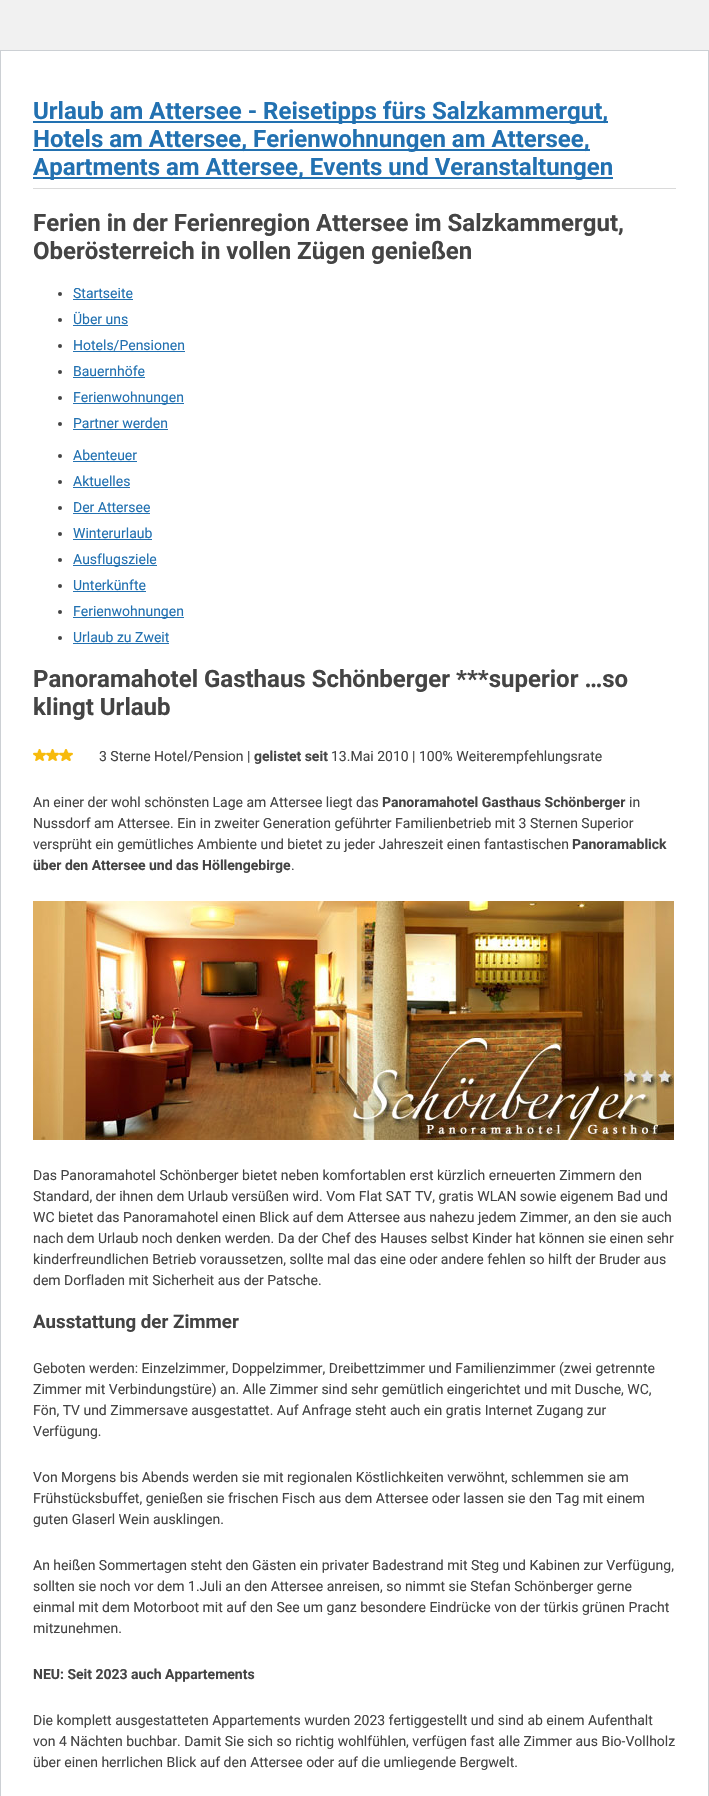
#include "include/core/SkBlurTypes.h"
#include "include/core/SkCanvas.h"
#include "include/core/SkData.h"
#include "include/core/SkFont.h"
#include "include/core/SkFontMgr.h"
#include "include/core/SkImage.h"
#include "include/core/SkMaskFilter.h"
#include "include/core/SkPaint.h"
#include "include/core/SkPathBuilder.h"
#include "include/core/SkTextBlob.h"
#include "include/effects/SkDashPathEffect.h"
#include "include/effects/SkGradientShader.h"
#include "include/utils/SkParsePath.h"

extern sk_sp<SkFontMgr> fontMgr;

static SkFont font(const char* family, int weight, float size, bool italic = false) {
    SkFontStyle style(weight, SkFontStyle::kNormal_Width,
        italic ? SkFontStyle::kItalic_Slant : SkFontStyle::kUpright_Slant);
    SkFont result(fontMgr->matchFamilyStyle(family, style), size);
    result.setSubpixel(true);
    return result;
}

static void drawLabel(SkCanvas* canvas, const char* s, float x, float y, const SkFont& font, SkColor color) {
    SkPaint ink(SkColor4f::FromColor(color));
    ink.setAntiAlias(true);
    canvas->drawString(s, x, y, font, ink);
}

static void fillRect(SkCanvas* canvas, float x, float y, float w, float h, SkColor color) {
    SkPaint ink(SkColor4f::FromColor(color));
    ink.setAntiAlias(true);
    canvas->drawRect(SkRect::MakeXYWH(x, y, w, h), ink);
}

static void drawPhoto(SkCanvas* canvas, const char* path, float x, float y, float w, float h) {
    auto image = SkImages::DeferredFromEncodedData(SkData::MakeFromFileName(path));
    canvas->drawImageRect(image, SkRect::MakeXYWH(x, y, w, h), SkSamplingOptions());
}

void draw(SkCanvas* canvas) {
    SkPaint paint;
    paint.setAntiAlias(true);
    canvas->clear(0xFFF1F1F1);
    paint.setColor(0xFFFFFFFF);
    canvas->drawRect(SkRect::MakeXYWH(0.5f, 50.5f, 708, 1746), paint);
    paint.setStroke(true);
    paint.setStrokeWidth(1);
    paint.setColor(0xFFCCD0D4);
    canvas->drawRect(SkRect::MakeXYWH(0.5f, 50.5f, 708, 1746), paint);
    fillRect(canvas, 33, 188, 643, 1, 0xFFDADADA);
    fillRect(canvas, 33, 121, 575, 2, 0xFF2271B1);
    SkFont font1 = font("Roboto", 700, 24);
    drawLabel(canvas, "Urlaub am Attersee - Reisetipps fürs Salzkammergut,", 33, 119, font1, 0xFF2271B1);
    fillRect(canvas, 33, 149, 557, 2, 0xFF2271B1);
    drawLabel(canvas, "Hotels am Attersee, Ferienwohnungen am Attersee,", 33, 147, font1, 0xFF2271B1);
    fillRect(canvas, 33, 177, 580, 2, 0xFF2271B1);
    drawLabel(canvas, "Apartments am Attersee, Events und Veranstaltungen", 33, 175, font1, 0xFF2271B1);
    drawLabel(canvas, "Ferien in der Ferienregion Attersee im Salzkammergut,", 33, 231, font1, 0xFF444444);
    drawLabel(canvas, "Oberösterreich in vollen Zügen genießen", 33, 259, font1, 0xFF444444);
    paint.setStroke(false);
    paint.setColor(0xFF444444);
    canvas->drawCircle(60, 294, 2, paint);
    SkFont font2 = font("Roboto", 400, 14);
    drawLabel(canvas, "Startseite", 73, 298, font2, 0xFF2271B1);
    fillRect(canvas, 73, 299, 60, 1, 0xFF2271B1);
    canvas->drawCircle(60, 320, 2, paint);
    drawLabel(canvas, "Über uns", 73, 324, font2, 0xFF2271B1);
    fillRect(canvas, 73, 325, 55, 1, 0xFF2271B1);
    canvas->drawCircle(60, 346, 2, paint);
    drawLabel(canvas, "Hotels/Pensionen", 73, 350, font2, 0xFF2271B1);
    fillRect(canvas, 73, 351, 112, 1, 0xFF2271B1);
    canvas->drawCircle(60, 372, 2, paint);
    drawLabel(canvas, "Bauernhöfe", 73, 376, font2, 0xFF2271B1);
    fillRect(canvas, 73, 377, 72, 1, 0xFF2271B1);
    canvas->drawCircle(60, 398, 2, paint);
    fillRect(canvas, 73, 403, 111, 1, 0xFF2271B1);
    drawLabel(canvas, "Ferienwohnungen", 73, 402, font2, 0xFF2271B1);
    canvas->drawCircle(60, 424, 2, paint);
    drawLabel(canvas, "Partner werden", 73, 428, font2, 0xFF2271B1);
    fillRect(canvas, 73, 429, 95, 1, 0xFF2271B1);
    canvas->drawCircle(60, 456, 2, paint);
    drawLabel(canvas, "Abenteuer", 73, 460, font2, 0xFF2271B1);
    fillRect(canvas, 73, 461, 64, 1, 0xFF2271B1);
    canvas->drawCircle(60, 482, 2, paint);
    drawLabel(canvas, "Aktuelles", 73, 486, font2, 0xFF2271B1);
    fillRect(canvas, 73, 487, 57, 1, 0xFF2271B1);
    canvas->drawCircle(60, 508, 2, paint);
    drawLabel(canvas, "Der Attersee", 73, 512, font2, 0xFF2271B1);
    fillRect(canvas, 73, 513, 77, 1, 0xFF2271B1);
    canvas->drawCircle(60, 534, 2, paint);
    drawLabel(canvas, "Winterurlaub", 73, 538, font2, 0xFF2271B1);
    fillRect(canvas, 73, 539, 79, 1, 0xFF2271B1);
    canvas->drawCircle(60, 560, 2, paint);
    fillRect(canvas, 73, 565, 84, 1, 0xFF2271B1);
    drawLabel(canvas, "Ausflugsziele", 73, 564, font2, 0xFF2271B1);
    canvas->drawCircle(60, 586, 2, paint);
    drawLabel(canvas, "Unterkünfte", 73, 590, font2, 0xFF2271B1);
    fillRect(canvas, 73, 591, 73, 1, 0xFF2271B1);
    canvas->drawCircle(60, 612, 2, paint);
    fillRect(canvas, 73, 617, 111, 1, 0xFF2271B1);
    drawLabel(canvas, "Ferienwohnungen", 73, 616, font2, 0xFF2271B1);
    canvas->drawCircle(60, 638, 2, paint);
    drawLabel(canvas, "Urlaub zu Zweit", 73, 642, font2, 0xFF2271B1);
    fillRect(canvas, 73, 643, 96, 1, 0xFF2271B1);
    drawLabel(canvas, "Panoramahotel Gasthaus Schönberger ***superior …so", 33, 687, font1, 0xFF444444);
    drawLabel(canvas, "klingt Urlaub", 33, 715, font1, 0xFF444444);
    drawPhoto(canvas, "assets/img1.png", 33, 749, 40, 12);
    drawLabel(canvas, "3 Sterne Hotel/Pension |", 99, 761, font2, 0xFF444444);
    SkFont font3 = font("Roboto", 700, 14);
    drawLabel(canvas, "gelistet seit", 254, 761, font3, 0xFF444444);
    drawLabel(canvas, "13.Mai 2010 | 100% Weiterempfehlungsrate", 331, 761, font2, 0xFF444444);
    drawLabel(canvas, "An einer der wohl schönsten Lage am Attersee liegt das", 33, 807, font2, 0xFF444444);
    drawLabel(canvas, "Panoramahotel Gasthaus Schönberger", 382, 807, font3, 0xFF444444);
    drawLabel(canvas, "in", 629, 807, font2, 0xFF444444);
    drawLabel(canvas, "Nussdorf am Attersee. Ein in zweiter Generation geführter Familienbetrieb mit 3 Sternen Superior", 33, 828, font2, 0xFF444444);
    drawLabel(canvas, "versprüht ein gemütliches Ambiente und bietet zu jeder Jahreszeit einen fantastischen", 33, 849, font2, 0xFF444444);
    drawLabel(canvas, "Panoramablick", 572, 849, font3, 0xFF444444);
    drawLabel(canvas, "über den Attersee und das Höllengebirge", 33, 870, font3, 0xFF444444);
    drawLabel(canvas, ".", 291, 870, font2, 0xFF444444);
    drawPhoto(canvas, "assets/img2.png", 33, 901, 641, 239);
    drawLabel(canvas, "Das Panoramahotel Schönberger bietet neben komfortablen erst kürzlich erneuerten Zimmern den", 33, 1180, font2, 0xFF444444);
    drawLabel(canvas, "Standard, der ihnen dem Urlaub versüßen wird. Vom Flat SAT TV, gratis WLAN sowie eigenem Bad und", 33, 1201, font2, 0xFF444444);
    drawLabel(canvas, "WC bietet das Panoramahotel einen Blick auf dem Attersee aus nahezu jedem Zimmer, an den sie auch", 33, 1222, font2, 0xFF444444);
    drawLabel(canvas, "nach dem Urlaub noch denken werden. Da der Chef des Hauses selbst Kinder hat können sie einen sehr", 33, 1243, font2, 0xFF444444);
    drawLabel(canvas, "kinderfreundlichen Betrieb voraussetzen, sollte mal das eine oder andere fehlen so hilft der Bruder aus", 33, 1264, font2, 0xFF444444);
    drawLabel(canvas, "dem Dorfladen mit Sicherheit aus der Patsche.", 33, 1285, font2, 0xFF444444);
    SkFont font4 = font("Roboto", 700, 18.75f);
    drawLabel(canvas, "Ausstattung der Zimmer", 33, 1328, font4, 0xFF444444);
    drawLabel(canvas, "Geboten werden: Einzelzimmer, Doppelzimmer, Dreibettzimmer und Familienzimmer (zwei getrennte", 33, 1373, font2, 0xFF444444);
    drawLabel(canvas, "Zimmer mit Verbindungstüre) an. Alle Zimmer sind sehr gemütlich eingerichtet und mit Dusche, WC,", 33, 1394, font2, 0xFF444444);
    drawLabel(canvas, "Fön, TV und Zimmersave ausgestattet. Auf Anfrage steht auch ein gratis Internet Zugang zur", 33, 1415, font2, 0xFF444444);
    drawLabel(canvas, "Verfügung.", 33, 1436, font2, 0xFF444444);
    drawLabel(canvas, "Von Morgens bis Abends werden sie mit regionalen Köstlichkeiten verwöhnt, schlemmen sie am", 33, 1482, font2, 0xFF444444);
    drawLabel(canvas, "Frühstücksbuffet, genießen sie frischen Fisch aus dem Attersee oder lassen sie den Tag mit einem", 33, 1503, font2, 0xFF444444);
    drawLabel(canvas, "guten Glaserl Wein ausklingen.", 33, 1524, font2, 0xFF444444);
    drawLabel(canvas, "An heißen Sommertagen steht den Gästen ein privater Badestrand mit Steg und Kabinen zur Verfügung,", 33, 1570, font2, 0xFF444444);
    drawLabel(canvas, "sollten sie noch vor dem 1.Juli an den Attersee anreisen, so nimmt sie Stefan Schönberger gerne", 33, 1591, font2, 0xFF444444);
    drawLabel(canvas, "einmal mit dem Motorboot mit auf den See um ganz besondere Eindrücke von der türkis grünen Pracht", 33, 1612, font2, 0xFF444444);
    drawLabel(canvas, "mitzunehmen.", 33, 1633, font2, 0xFF444444);
    drawLabel(canvas, "NEU: Seit 2023 auch Appartements", 33, 1679, font3, 0xFF444444);
    drawLabel(canvas, "Die komplett ausgestatteten Appartements wurden 2023 fertiggestellt und sind ab einem Aufenthalt", 33, 1725, font2, 0xFF444444);
    drawLabel(canvas, "von 4 Nächten buchbar. Damit Sie sich so richtig wohlfühlen, verfügen fast alle Zimmer aus Bio-Vollholz", 33, 1746, font2, 0xFF444444);
    drawLabel(canvas, "über einen herrlichen Blick auf den Attersee oder auf die umliegende Bergwelt.", 33, 1767, font2, 0xFF444444);
}
